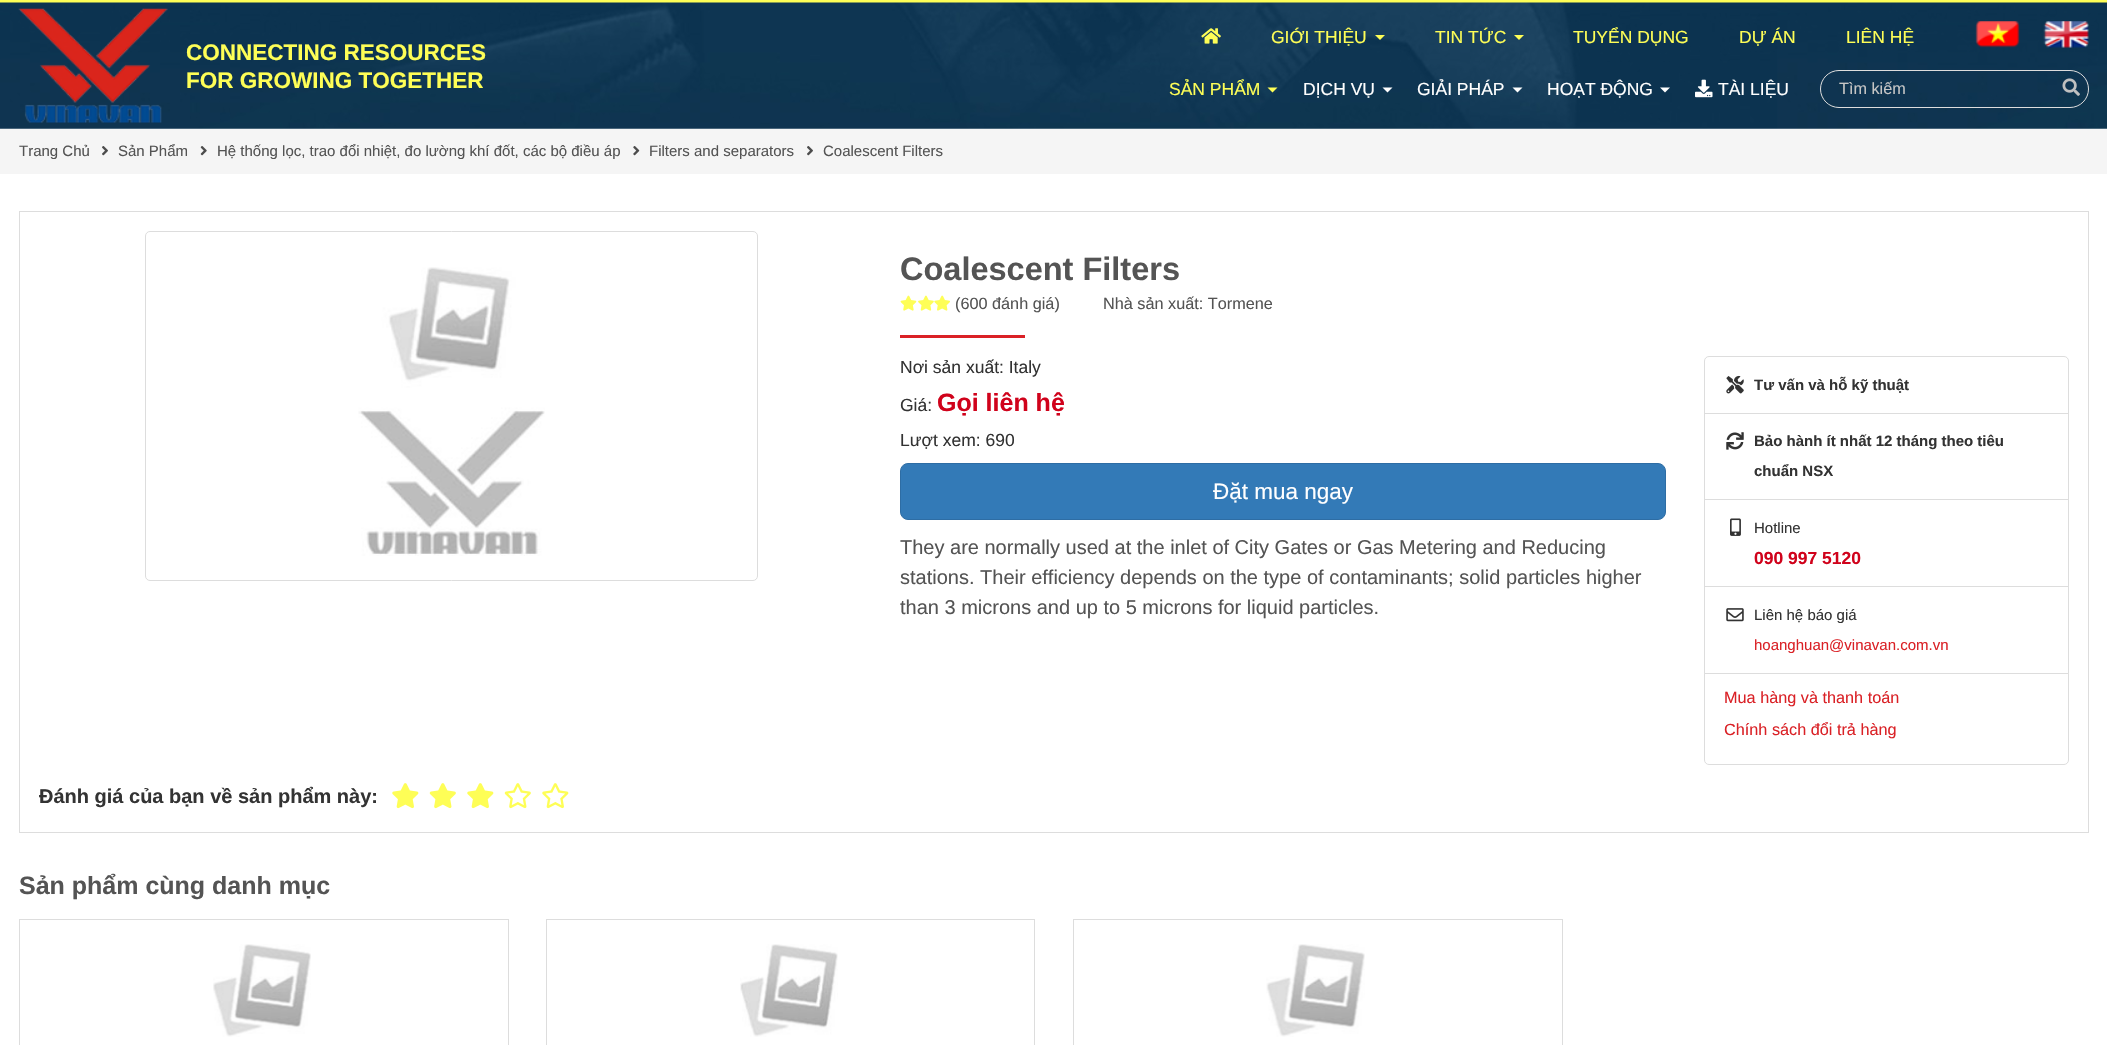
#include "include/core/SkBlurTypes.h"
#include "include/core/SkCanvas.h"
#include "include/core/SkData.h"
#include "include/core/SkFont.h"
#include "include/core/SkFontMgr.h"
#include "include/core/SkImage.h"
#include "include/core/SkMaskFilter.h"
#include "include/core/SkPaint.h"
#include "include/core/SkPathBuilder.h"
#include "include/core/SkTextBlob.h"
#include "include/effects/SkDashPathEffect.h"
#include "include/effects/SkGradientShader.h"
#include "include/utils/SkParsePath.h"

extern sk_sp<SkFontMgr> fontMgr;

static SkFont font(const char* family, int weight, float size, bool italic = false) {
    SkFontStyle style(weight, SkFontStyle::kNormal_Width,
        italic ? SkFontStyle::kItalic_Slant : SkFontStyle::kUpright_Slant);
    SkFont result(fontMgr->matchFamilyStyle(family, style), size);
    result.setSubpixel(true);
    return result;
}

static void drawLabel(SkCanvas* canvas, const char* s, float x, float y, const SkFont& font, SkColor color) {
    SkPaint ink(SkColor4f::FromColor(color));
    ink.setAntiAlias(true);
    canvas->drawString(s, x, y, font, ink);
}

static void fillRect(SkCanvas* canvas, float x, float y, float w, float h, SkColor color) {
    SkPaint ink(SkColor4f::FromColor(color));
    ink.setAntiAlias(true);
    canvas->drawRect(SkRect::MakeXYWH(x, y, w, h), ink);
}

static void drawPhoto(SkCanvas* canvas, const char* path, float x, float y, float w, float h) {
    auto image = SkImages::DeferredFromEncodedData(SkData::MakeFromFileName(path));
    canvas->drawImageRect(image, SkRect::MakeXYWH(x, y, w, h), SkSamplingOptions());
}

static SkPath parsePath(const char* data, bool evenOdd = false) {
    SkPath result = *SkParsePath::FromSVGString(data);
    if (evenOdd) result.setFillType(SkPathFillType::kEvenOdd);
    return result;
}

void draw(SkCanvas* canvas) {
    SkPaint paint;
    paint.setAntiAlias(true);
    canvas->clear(0xFFFFFFFF);
    fillRect(canvas, 0, 0, 2107, 3, 0xFFFEFE56);
    drawPhoto(canvas, "assets/img1.png", 0, 2, 2107, 127);
    drawPhoto(canvas, "assets/img2.png", 18, 8, 150, 115);
    SkFont font1 = font("Liberation Sans", 700, 22.5f);
    drawLabel(canvas, "CONNECTING RESOURCES", 186, 60, font1, 0xFFFEFE56);
    drawLabel(canvas, "FOR GROWING TOGETHER", 186, 88, font1, 0xFFFEFE56);
    drawPhoto(canvas, "assets/img3.png", 1201, 28, 20, 16);
    SkFont font2 = font("Liberation Sans", 400, 17.5f);
    drawLabel(canvas, "GIỚI THIỆU", 1271, 43, font2, 0xFFFEFE56);
    paint.setColor(0xFFFEFE56);
    canvas->drawPath(parsePath("M1375 35H1385L1380 40Z"), paint);
    drawLabel(canvas, "TIN TỨC", 1435, 43, font2, 0xFFFEFE56);
    canvas->drawPath(parsePath("M1514 35H1524L1519 40Z"), paint);
    drawLabel(canvas, "TUYỂN DỤNG", 1573, 43, font2, 0xFFFEFE56);
    drawLabel(canvas, "DỰ ÁN", 1739, 43, font2, 0xFFFEFE56);
    drawLabel(canvas, "LIÊN HỆ", 1846, 43, font2, 0xFFFEFE56);
    drawPhoto(canvas, "assets/img4.png", 1975, 21, 45, 27);
    drawPhoto(canvas, "assets/img5.png", 2043, 21, 46, 27);
    drawLabel(canvas, "SẢN PHẨM", 1169, 95, font2, 0xFFFEFE56);
    canvas->drawPath(parsePath("M1267.5 87.5H1277.5L1272.5 92.5Z"), paint);
    drawLabel(canvas, "DỊCH VỤ", 1303, 95, font2, 0xFFFFFFFF);
    paint.setColor(0xFFFFFFFF);
    canvas->drawPath(parsePath("M1382.5 87.5H1392.5L1387.5 92.5Z"), paint);
    drawLabel(canvas, "GIẢI PHÁP", 1417, 95, font2, 0xFFFFFFFF);
    canvas->drawPath(parsePath("M1512.5 87.5H1522.5L1517.5 92.5Z"), paint);
    drawLabel(canvas, "HOẠT ĐỘNG", 1547, 95, font2, 0xFFFFFFFF);
    canvas->drawPath(parsePath("M1660 87.5H1670L1665 92.5Z"), paint);
    drawPhoto(canvas, "assets/img6.png", 1695, 79, 18, 19);
    drawLabel(canvas, "TÀI LIỆU", 1718, 95, font2, 0xFFFFFFFF);
    paint.setStroke(true);
    paint.setStrokeWidth(1);
    paint.setColor(0xFFDDDDDD);
    canvas->drawRoundRect(SkRect::MakeXYWH(1820.5f, 70.5f, 268, 37), 18.5f, 18.5f, paint);
    SkFont font3 = font("Liberation Sans", 400, 16.25f);
    drawLabel(canvas, "Tìm kiếm", 1839, 94, font3, 0xFFC5C5C5);
    drawPhoto(canvas, "assets/img7.png", 2062, 78, 18, 18);
    fillRect(canvas, 0, 129, 2107, 45, 0xFFF5F5F5);
    SkFont font4 = font("Liberation Sans", 400, 15);
    drawLabel(canvas, "Trang Chủ", 19, 156, font4, 0xFF545454);
    drawPhoto(canvas, "assets/img8.png", 102, 146, 6, 10);
    drawLabel(canvas, "Sản Phẩm", 118, 156, font4, 0xFF545454);
    drawPhoto(canvas, "assets/img9.png", 200, 146, 7, 10);
    drawLabel(canvas, "Hệ thống lọc, trao đổi nhiệt, đo lường khí đốt, các bộ điều áp", 217, 156, font4, 0xFF545454);
    drawPhoto(canvas, "assets/img10.png", 633, 146, 7, 10);
    drawLabel(canvas, "Filters and separators", 649, 156, font4, 0xFF545454);
    drawPhoto(canvas, "assets/img8.png", 807, 146, 6, 10);
    drawLabel(canvas, "Coalescent Filters", 823, 156, font4, 0xFF545454);
    canvas->drawRect(SkRect::MakeXYWH(19.5f, 211.5f, 2069, 621), paint);
    canvas->drawRoundRect(SkRect::MakeXYWH(145.5f, 231.5f, 612, 349), 4.5f, 4.5f, paint);
    drawPhoto(canvas, "assets/img11.png", 358, 267, 187, 289);
    SkFont font5 = font("Liberation Sans", 700, 32.5f);
    drawLabel(canvas, "Coalescent Filters", 900, 280, font5, 0xFF545454);
    drawPhoto(canvas, "assets/img12.png", 900, 295, 17, 16);
    drawPhoto(canvas, "assets/img13.png", 918, 295, 16, 16);
    drawPhoto(canvas, "assets/img14.png", 934, 295, 16, 16);
    drawLabel(canvas, "(600 đánh giá)", 955, 309, font3, 0xFF545454);
    drawLabel(canvas, "Nhà sản xuất: Tormene", 1103, 309, font3, 0xFF545454);
    fillRect(canvas, 900, 335, 125, 3, 0xFFDA2126);
    drawLabel(canvas, "Nơi sản xuất: Italy", 900, 373, font2, 0xFF333333);
    drawLabel(canvas, "Giá:", 900, 411, font2, 0xFF333333);
    SkFont font6 = font("Liberation Sans", 700, 25);
    drawLabel(canvas, "Gọi liên hệ", 937, 411, font6, 0xFFD0021B);
    drawLabel(canvas, "Lượt xem: 690", 900, 446, font2, 0xFF333333);
    paint.setStroke(false);
    paint.setColor(0xFF337AB7);
    canvas->drawRoundRect(SkRect::MakeXYWH(900.5f, 463.5f, 765, 56), 7.5f, 7.5f, paint);
    paint.setStroke(true);
    paint.setColor(0xFF2E6DA4);
    canvas->drawRoundRect(SkRect::MakeXYWH(900.5f, 463.5f, 765, 56), 7.5f, 7.5f, paint);
    SkFont font7 = font("Liberation Sans", 400, 22.5f);
    drawLabel(canvas, "Đặt mua ngay", 1213, 499, font7, 0xFFFFFFFF);
    SkFont font8 = font("Liberation Sans", 400, 20);
    drawLabel(canvas, "They are normally used at the inlet of City Gates or Gas Metering and Reducing", 900, 554, font8, 0xFF545454);
    drawLabel(canvas, "stations. Their efficiency depends on the type of contaminants; solid particles higher", 900, 584, font8, 0xFF545454);
    drawLabel(canvas, "than 3 microns and up to 5 microns for liquid particles.", 900, 614, font8, 0xFF545454);
    paint.setColor(0xFFDDDDDD);
    canvas->drawPath(parsePath("M1709 356.5H2064C2066.5 356.5 2068.5 358.5 2068.5 361V413.5H1704.5V361C1704.5 358.5 1706.5 356.5 1709 356.5Z"), paint);
    drawPhoto(canvas, "assets/img15.png", 1726, 375, 18, 19);
    SkFont font9 = font("Liberation Sans", 700, 15);
    drawLabel(canvas, "Tư vấn và hỗ kỹ thuật", 1754, 390, font9, 0xFF333333);
    canvas->drawRect(SkRect::MakeXYWH(1704.5f, 413.5f, 364, 86), paint);
    drawPhoto(canvas, "assets/img16.png", 1726, 432, 18, 18);
    drawLabel(canvas, "Bảo hành ít nhất 12 tháng theo tiêu", 1754, 446, font9, 0xFF333333);
    drawLabel(canvas, "chuẩn NSX", 1754, 476, font9, 0xFF333333);
    canvas->drawRect(SkRect::MakeXYWH(1704.5f, 499.5f, 364, 88), paint);
    drawPhoto(canvas, "assets/img17.png", 1730, 518, 11, 18);
    drawLabel(canvas, "Hotline", 1754, 533, font4, 0xFF333333);
    SkFont font10 = font("Liberation Sans", 700, 17.5f);
    drawLabel(canvas, "090 997 5120", 1754, 564, font10, 0xFFD0021B);
    fillRect(canvas, 1705, 587, 363, 1, 0xFFFFFFFF);
    canvas->drawRect(SkRect::MakeXYWH(1704.5f, 586.5f, 364, 87), paint);
    drawPhoto(canvas, "assets/img18.png", 1726, 608, 18, 14);
    drawLabel(canvas, "Liên hệ báo giá", 1754, 620, font4, 0xFF333333);
    drawLabel(canvas, "hoanghuan@vinavan.com.vn", 1754, 650, font4, 0xFFDA2126);
    paint.setStroke(false);
    paint.setColor(0xFFFFFFFF);
    canvas->drawPath(parsePath("M1704.5 673.5H2068.5V760C2068.5 762.5 2066.5 764.5 2064 764.5H1709C1706.5 764.5 1704.5 762.5 1704.5 760Z"), paint);
    paint.setStroke(true);
    paint.setColor(0xFFDDDDDD);
    canvas->drawPath(parsePath("M1704.5 673.5H2068.5V760C2068.5 762.5 2066.5 764.5 2064 764.5H1709C1706.5 764.5 1704.5 762.5 1704.5 760Z"), paint);
    drawLabel(canvas, "Mua hàng và thanh toán", 1724, 703, font3, 0xFFDA2126);
    drawLabel(canvas, "Chính sách đổi trả hàng", 1724, 735, font3, 0xFFDA2126);
    SkFont font11 = font("Liberation Sans", 700, 20);
    drawLabel(canvas, "Đánh giá của bạn về sản phẩm này:", 39, 803, font11, 0xFF333333);
    drawPhoto(canvas, "assets/img19.png", 392, 783, 27, 26);
    drawPhoto(canvas, "assets/img20.png", 429, 783, 27, 26);
    drawPhoto(canvas, "assets/img19.png", 467, 783, 27, 26);
    drawPhoto(canvas, "assets/img21.png", 504, 783, 27, 26);
    drawPhoto(canvas, "assets/img22.png", 542, 783, 27, 26);
    drawLabel(canvas, "Sản phẩm cùng danh mục", 19, 894, font6, 0xFF545454);
    canvas->drawRect(SkRect::MakeXYWH(19.5f, 919.5f, 489, 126), paint);
    drawPhoto(canvas, "assets/img23.png", 213, 944, 98, 93);
    canvas->drawRect(SkRect::MakeXYWH(546.5f, 919.5f, 488, 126), paint);
    drawPhoto(canvas, "assets/img24.png", 740, 944, 98, 93);
    canvas->drawRect(SkRect::MakeXYWH(1073.5f, 919.5f, 489, 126), paint);
    drawPhoto(canvas, "assets/img25.png", 1266, 944, 99, 93);
}
